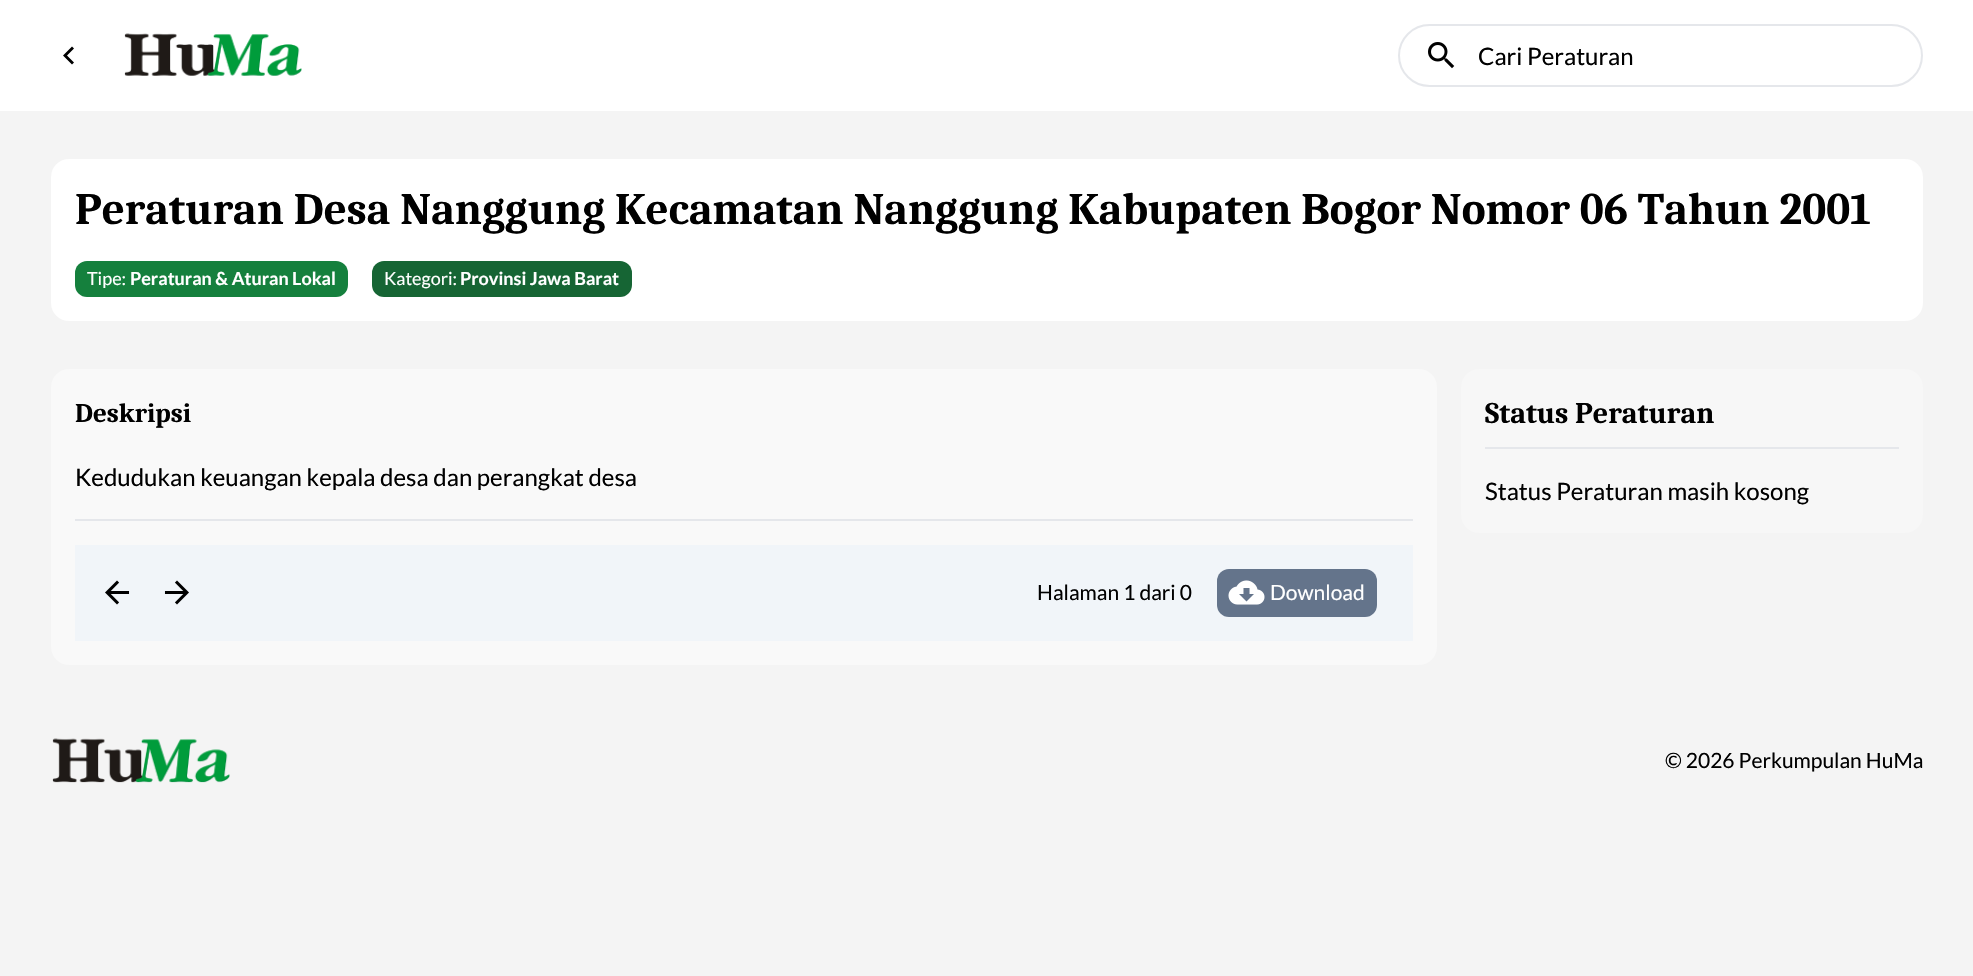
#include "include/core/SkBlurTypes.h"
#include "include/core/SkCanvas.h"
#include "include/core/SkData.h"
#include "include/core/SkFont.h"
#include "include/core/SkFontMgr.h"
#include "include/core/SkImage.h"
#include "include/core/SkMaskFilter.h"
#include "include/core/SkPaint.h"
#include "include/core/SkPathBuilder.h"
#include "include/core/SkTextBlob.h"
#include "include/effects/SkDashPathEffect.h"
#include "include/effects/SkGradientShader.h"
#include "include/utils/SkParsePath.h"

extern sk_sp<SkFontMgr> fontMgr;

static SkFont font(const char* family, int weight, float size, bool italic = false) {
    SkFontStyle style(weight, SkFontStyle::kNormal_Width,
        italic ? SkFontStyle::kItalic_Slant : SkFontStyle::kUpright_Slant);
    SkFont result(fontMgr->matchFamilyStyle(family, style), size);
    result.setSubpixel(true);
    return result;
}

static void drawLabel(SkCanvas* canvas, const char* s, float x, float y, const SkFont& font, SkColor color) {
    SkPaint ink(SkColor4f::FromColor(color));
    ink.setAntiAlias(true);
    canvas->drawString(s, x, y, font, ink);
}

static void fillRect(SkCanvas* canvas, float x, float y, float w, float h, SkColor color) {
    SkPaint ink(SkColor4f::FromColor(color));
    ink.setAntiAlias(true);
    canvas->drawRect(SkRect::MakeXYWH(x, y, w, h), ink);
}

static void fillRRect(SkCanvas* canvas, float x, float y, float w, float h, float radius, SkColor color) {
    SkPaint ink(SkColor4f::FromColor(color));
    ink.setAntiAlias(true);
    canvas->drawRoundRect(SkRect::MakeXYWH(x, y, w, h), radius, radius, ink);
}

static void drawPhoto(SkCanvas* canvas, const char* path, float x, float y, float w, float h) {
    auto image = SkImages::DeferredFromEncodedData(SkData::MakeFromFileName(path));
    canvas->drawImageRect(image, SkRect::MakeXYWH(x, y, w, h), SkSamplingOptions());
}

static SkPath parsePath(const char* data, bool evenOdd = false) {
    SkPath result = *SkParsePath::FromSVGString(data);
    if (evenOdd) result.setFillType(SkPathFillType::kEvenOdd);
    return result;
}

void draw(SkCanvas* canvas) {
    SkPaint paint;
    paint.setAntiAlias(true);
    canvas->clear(0xFFF4F4F4);
    fillRect(canvas, 0, 0, 1973, 111, 0xFFFFFFFF);
    paint.setColor(0xFF000000);
    canvas->drawPath(parsePath("M74 48.5L67 55.5L74 62.5L72 64.5L63 55.5L72 46.5Z"), paint);
    drawPhoto(canvas, "assets/img1.png", 124, 33, 178, 43);
    paint.setStroke(true);
    paint.setStrokeWidth(2);
    paint.setColor(0xFFE5E7EB);
    canvas->drawRoundRect(SkRect::MakeXYWH(1399, 25, 523, 61), 30.5f, 30.5f, paint);
    drawPhoto(canvas, "assets/img2.png", 1428, 42, 27, 27);
    SkFont font1 = font("Lato", 400, 24);
    drawLabel(canvas, "Cari Peraturan", 1478, 65, font1, 0xFF000000);
    fillRRect(canvas, 51, 159, 1872, 162, 18, 0xFFFFFFFF);
    SkFont font2 = font("Caladea", 700, 45);
    drawLabel(canvas, "Peraturan Desa Nanggung Kecamatan Nanggung Kabupaten Bogor Nomor 06 Tahun 2001", 75, 224, font2, 0xFF000000);
    fillRRect(canvas, 75, 261, 273, 36, 12, 0xFF15803D);
    SkFont font3 = font("Lato", 400, 18);
    drawLabel(canvas, "Tipe:", 87, 285, font3, 0xFFFFFFFF);
    SkFont font4 = font("Lato", 700, 18);
    drawLabel(canvas, "Peraturan & Aturan Lokal", 130, 285, font4, 0xFFFFFFFF);
    fillRRect(canvas, 372, 261, 260, 36, 12, 0xFF166534);
    drawLabel(canvas, "Kategori:", 384, 285, font3, 0xFFFFFFFF);
    drawLabel(canvas, "Provinsi Jawa Barat", 460, 285, font4, 0xFFFFFFFF);
    fillRRect(canvas, 51, 369, 1386, 296, 18, 0xFFF9F9F9);
    fillRect(canvas, 75, 519, 1338, 2, 0xFFE5E7EB);
    SkFont font5 = font("Caladea", 700, 27);
    drawLabel(canvas, "Deskripsi", 75, 422, font5, 0xFF000000);
    drawLabel(canvas, "Kedudukan keuangan kepala desa dan perangkat desa", 75, 486, font1, 0xFF000000);
    fillRect(canvas, 75, 545, 1338, 96, 0xFFF1F5F9);
    drawPhoto(canvas, "assets/img3.png", 105, 580, 25, 25);
    drawPhoto(canvas, "assets/img4.png", 164, 580, 25, 25);
    SkFont font6 = font("Lato", 400, 21);
    drawLabel(canvas, "Halaman 1 dari 0", 1037, 600, font6, 0xFF000000);
    fillRRect(canvas, 1217, 569, 160, 48, 12, 0xFF64748B);
    drawPhoto(canvas, "assets/img5.png", 1228, 580, 37, 25);
    drawLabel(canvas, "Download", 1270, 600, font6, 0xFFFFFFFF);
    fillRRect(canvas, 1461, 369, 462, 164, 18, 0xFFF7F7F7);
    fillRect(canvas, 1485, 447, 414, 2, 0xFFE5E7EB);
    SkFont font7 = font("Caladea", 700, 30);
    drawLabel(canvas, "Status Peraturan", 1485, 423, font7, 0xFF000000);
    drawLabel(canvas, "Status Peraturan masih kosong", 1485, 500, font1, 0xFF000000);
    drawPhoto(canvas, "assets/img6.png", 52, 738, 178, 45);
    drawLabel(canvas, "© 2026 Perkumpulan HuMa", 1665, 768, font6, 0xFF000000);
}
